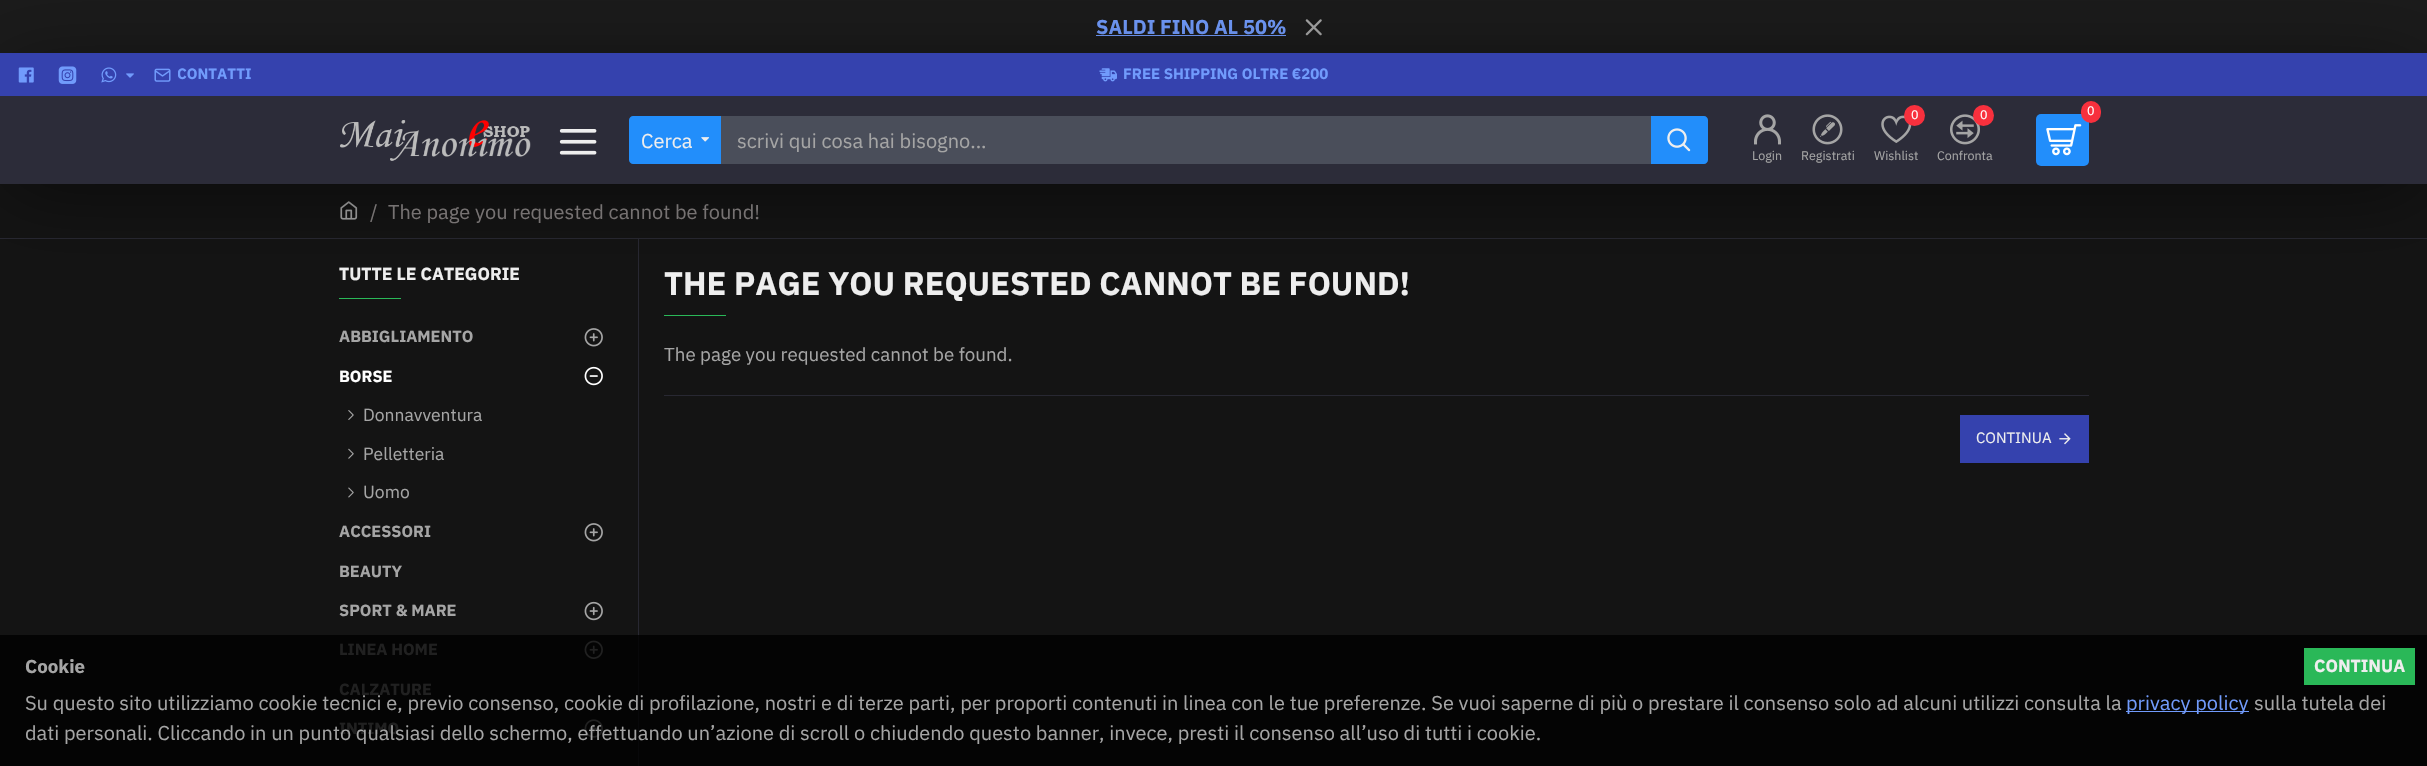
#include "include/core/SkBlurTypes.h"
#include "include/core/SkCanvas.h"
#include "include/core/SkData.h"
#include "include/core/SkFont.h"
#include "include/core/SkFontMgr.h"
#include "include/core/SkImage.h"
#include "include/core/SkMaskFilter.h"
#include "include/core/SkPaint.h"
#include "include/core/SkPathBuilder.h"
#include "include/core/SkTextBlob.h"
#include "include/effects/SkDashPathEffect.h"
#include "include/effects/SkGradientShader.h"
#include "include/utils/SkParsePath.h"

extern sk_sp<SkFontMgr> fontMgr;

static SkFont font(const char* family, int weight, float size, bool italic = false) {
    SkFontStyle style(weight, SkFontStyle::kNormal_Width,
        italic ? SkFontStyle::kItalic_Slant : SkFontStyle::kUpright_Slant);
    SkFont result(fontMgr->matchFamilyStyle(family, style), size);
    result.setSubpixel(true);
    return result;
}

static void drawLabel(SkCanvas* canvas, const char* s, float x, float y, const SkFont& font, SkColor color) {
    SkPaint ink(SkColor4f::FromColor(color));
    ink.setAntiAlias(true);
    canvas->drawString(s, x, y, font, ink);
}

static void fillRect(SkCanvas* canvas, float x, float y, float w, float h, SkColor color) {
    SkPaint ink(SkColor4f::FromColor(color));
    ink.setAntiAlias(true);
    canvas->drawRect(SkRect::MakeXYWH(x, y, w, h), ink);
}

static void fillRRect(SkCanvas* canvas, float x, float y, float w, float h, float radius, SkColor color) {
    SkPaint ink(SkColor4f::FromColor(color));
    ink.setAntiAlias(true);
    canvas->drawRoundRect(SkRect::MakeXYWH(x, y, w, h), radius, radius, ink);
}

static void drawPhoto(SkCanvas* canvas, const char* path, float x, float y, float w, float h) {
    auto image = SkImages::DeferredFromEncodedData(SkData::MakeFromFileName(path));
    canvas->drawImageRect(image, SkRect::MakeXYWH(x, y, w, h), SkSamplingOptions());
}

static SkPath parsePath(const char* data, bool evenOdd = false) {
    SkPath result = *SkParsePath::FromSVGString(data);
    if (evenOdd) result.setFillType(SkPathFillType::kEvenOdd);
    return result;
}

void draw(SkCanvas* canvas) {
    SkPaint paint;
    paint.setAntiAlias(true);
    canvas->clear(0xFF141414);
    fillRect(canvas, 0, 635, 2427, 131, 0xFF040404);
    fillRect(canvas, 0, 0, 2427, 53, 0xFF1B1B1B);
    SkFont font1 = font("IBM Plex Sans", 700, 20);
    drawLabel(canvas, "SALDI FINO AL 50%", 1096, 34, font1, 0xFF719BFC);
    fillRect(canvas, 1096, 35, 190, 1, 0xFF719BFC);
    drawPhoto(canvas, "assets/img1.png", 1305, 19, 17, 17);
    drawPhoto(canvas, "assets/img17.png", 340, 201, 18, 19);
    fillRect(canvas, 0, 238, 2427, 1, 0xFF282832);
    fillRect(canvas, 638, 239, 1, 396, 0xFF282832);
    fillRect(canvas, 339, 298, 62, 1, 0xFF2AB858);
    paint.setColor(0x80000000);
    paint.setMaskFilter(SkMaskFilter::MakeBlur(kNormal_SkBlurStyle, 40.5f));
    canvas->drawRect(SkRect::MakeXYWH(6, 71, 2415, 119), paint);
    paint.setMaskFilter(nullptr);
    fillRect(canvas, 0, 96, 2427, 88, 0xFF2C2C39);
    fillRect(canvas, 0, 53, 2427, 43, 0xFF3542AE);
    drawPhoto(canvas, "assets/img2.png", 18, 67, 16, 16);
    drawPhoto(canvas, "assets/img3.png", 58, 66, 19, 18);
    drawPhoto(canvas, "assets/img4.png", 101, 67, 16, 16);
    drawPhoto(canvas, "assets/img5.png", 126, 73, 8, 5);
    drawPhoto(canvas, "assets/img6.png", 154, 68, 17, 14);
    canvas->save();
    canvas->clipRect(SkRect::MakeXYWH(178, 64, 73, 22));
    SkFont font2 = font("IBM Plex Sans", 700, 15);
    drawLabel(canvas, "CONTATTI", 177, 79, font2, 0xFF719BFC);
    canvas->restore();
    drawPhoto(canvas, "assets/img7.png", 1099, 68, 18, 14);
    drawLabel(canvas, "FREE SHIPPING OLTRE €200", 1123, 79, font2, 0xFF719BFC);
    drawPhoto(canvas, "assets/img8.png", 340, 120, 191, 41);
    drawPhoto(canvas, "assets/img9.png", 559, 129, 38, 26);
    paint.setColor(0xFF228EFB);
    canvas->drawPath(parsePath("M633 116H721V164H633C631 164 629 162 629 160V120C629 118 631 116 633 116Z"), paint);
    SkFont font3 = font("IBM Plex Sans", 400, 20);
    drawLabel(canvas, "Cerca", 641, 148, font3, 0xFFEEEEEE);
    drawPhoto(canvas, "assets/img10.png", 701, 137, 9, 5);
    fillRect(canvas, 721, 116, 930, 48, 0xFF4A4E5A);
    drawLabel(canvas, "scrivi qui cosa hai bisogno...", 737, 148, font3, 0xFFA5A5A5);
    canvas->drawPath(parsePath("M1651 116H1704C1706 116 1708 118 1708 120V160C1708 162 1706 164 1704 164H1651Z"), paint);
    drawPhoto(canvas, "assets/img11.png", 1667, 128, 24, 24);
    drawPhoto(canvas, "assets/img12.png", 1754, 114, 27, 31);
    SkFont font4 = font("IBM Plex Sans", 400, 12.5f);
    drawLabel(canvas, "Login", 1752, 160, font4, 0xFFA5A5A5);
    drawPhoto(canvas, "assets/img13.png", 1812, 114, 31, 31);
    drawLabel(canvas, "Registrati", 1801, 160, font4, 0xFFA5A5A5);
    drawPhoto(canvas, "assets/img14.png", 1881, 115, 31, 28);
    paint.setColor(0xFFF8303D);
    canvas->drawCircle(1914.5f, 115.5f, 10.5f, paint);
    drawLabel(canvas, "0", 1911, 119, font4, 0xFFFFFFFF);
    drawLabel(canvas, "Wishlist", 1874, 160, font4, 0xFFA5A5A5);
    drawPhoto(canvas, "assets/img15.png", 1950, 114, 30, 31);
    canvas->drawCircle(1983.5f, 115.5f, 10.5f, paint);
    drawLabel(canvas, "0", 1980, 119, font4, 0xFFFFFFFF);
    drawLabel(canvas, "Confronta", 1937, 160, font4, 0xFFA5A5A5);
    fillRRect(canvas, 2036, 114, 53, 52, 5, 0xFF228EFB);
    fillRRect(canvas, 2081, 101, 20, 22, 10, 0xFFF8303D);
    drawLabel(canvas, "0", 2087, 115, font4, 0xFFFFFFFF);
    drawPhoto(canvas, "assets/img16.png", 2046, 124, 36, 32);
    drawLabel(canvas, "/", 370, 219, font3, 0xFF767272);
    drawLabel(canvas, "The page you requested cannot be found!", 388, 219, font3, 0xFF767272);
    fillRect(canvas, 638, 635, 1, 131, 0xFF08080A);
    SkFont font5 = font("IBM Plex Sans", 700, 17.5f);
    drawLabel(canvas, "TUTTE LE CATEGORIE", 339, 280, font5, 0xFFEEEEEE);
    SkFont font6 = font("IBM Plex Sans", 700, 16.25f);
    drawLabel(canvas, "ABBIGLIAMENTO", 339, 342, font6, 0xFFA5A5A5);
    drawPhoto(canvas, "assets/img18.png", 584, 328, 19, 19);
    drawLabel(canvas, "BORSE", 339, 382, font6, 0xFFFFFFFF);
    drawPhoto(canvas, "assets/img19.png", 584, 366, 19, 20);
    drawPhoto(canvas, "assets/img20.png", 348, 410, 6, 10);
    SkFont font7 = font("IBM Plex Sans", 400, 17.5f);
    drawLabel(canvas, "Donnavventura", 363, 421, font7, 0xFFA5A5A5);
    drawPhoto(canvas, "assets/img21.png", 348, 448, 6, 11);
    drawLabel(canvas, "Pelletteria", 363, 460, font7, 0xFFA5A5A5);
    drawPhoto(canvas, "assets/img22.png", 348, 487, 6, 11);
    drawLabel(canvas, "Uomo", 363, 498, font7, 0xFFA5A5A5);
    drawLabel(canvas, "ACCESSORI", 339, 537, font6, 0xFFA5A5A5);
    drawPhoto(canvas, "assets/img18.png", 584, 523, 19, 19);
    drawLabel(canvas, "BEAUTY", 339, 577, font6, 0xFFA5A5A5);
    drawLabel(canvas, "SPORT & MARE", 339, 616, font6, 0xFFA5A5A5);
    drawPhoto(canvas, "assets/img23.png", 584, 601, 19, 20);
    drawLabel(canvas, "LINEA HOME", 339, 655, font6, 0xFF212121);
    drawPhoto(canvas, "assets/img24.png", 584, 640, 19, 19);
    drawLabel(canvas, "CALZATURE", 339, 695, font6, 0xFF212121);
    drawLabel(canvas, "INTIMO", 339, 734, font6, 0xFF212121);
    drawPhoto(canvas, "assets/img25.png", 584, 719, 19, 19);
    SkFont font8 = font("IBM Plex Sans", 700, 32.5f);
    drawLabel(canvas, "THE PAGE YOU REQUESTED CANNOT BE FOUND!", 664, 295, font8, 0xFFEEEEEE);
    fillRect(canvas, 664, 315, 62, 1, 0xFF2AB858);
    SkFont font9 = font("IBM Plex Sans", 400, 18.75f);
    drawLabel(canvas, "The page you requested cannot be found.", 664, 361, font9, 0xFFA5A5A5);
    fillRect(canvas, 664, 395, 1425, 1, 0xFF282832);
    fillRect(canvas, 1960, 415, 129, 48, 0xFF3542AE);
    SkFont font10 = font("IBM Plex Sans", 400, 15);
    drawLabel(canvas, "CONTINUA", 1976, 443, font10, 0xFFEEEEEE);
    drawPhoto(canvas, "assets/img26.png", 2059, 433, 12, 12);
    SkFont font11 = font("IBM Plex Sans", 700, 18.75f);
    drawLabel(canvas, "Cookie", 25, 673, font11, 0xFFA5A5A5);
    drawLabel(canvas, "Su questo sito utilizziamo cookie tecnici e, previo consenso, cookie di profilazione, nostri e di terze parti, per proporti contenuti in linea con le tue preferenze. Se vuoi saperne di più o prestare il consenso solo ad alcuni utilizzi consulta la", 25, 710, font3, 0xFFA5A5A5);
    fillRect(canvas, 2126, 711, 123, 1, 0xFF719BFC);
    drawLabel(canvas, "privacy policy", 2126, 710, font3, 0xFF719BFC);
    drawLabel(canvas, "sulla tutela dei", 2254, 710, font3, 0xFFA5A5A5);
    drawLabel(canvas, "dati personali. Cliccando in un punto qualsiasi dello schermo, effettuando un’azione di scroll o chiudendo questo banner, invece, presti il consenso all’uso di tutti i cookie.", 25, 740, font3, 0xFFA5A5A5);
    fillRect(canvas, 2304, 648, 111, 37, 0xFF2AB858);
    drawLabel(canvas, "CONTINUA", 2314, 672, font5, 0xFFEEEEEE);
}
